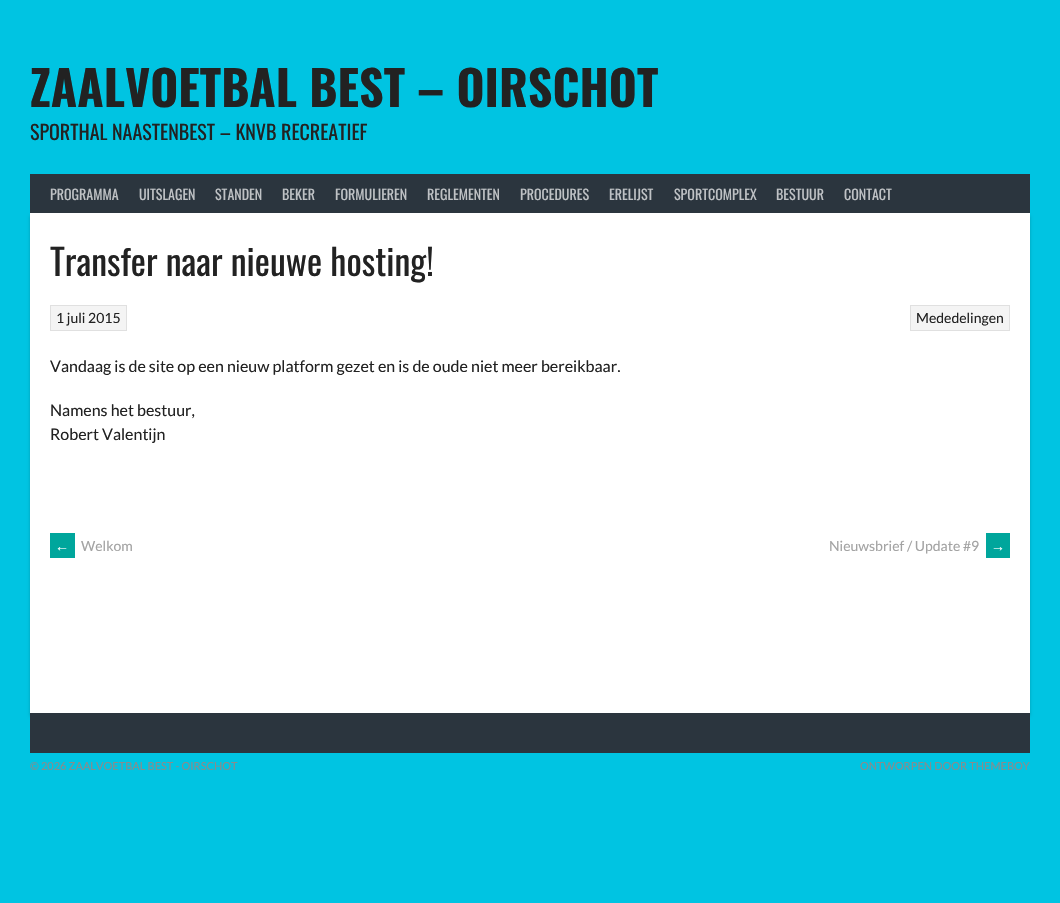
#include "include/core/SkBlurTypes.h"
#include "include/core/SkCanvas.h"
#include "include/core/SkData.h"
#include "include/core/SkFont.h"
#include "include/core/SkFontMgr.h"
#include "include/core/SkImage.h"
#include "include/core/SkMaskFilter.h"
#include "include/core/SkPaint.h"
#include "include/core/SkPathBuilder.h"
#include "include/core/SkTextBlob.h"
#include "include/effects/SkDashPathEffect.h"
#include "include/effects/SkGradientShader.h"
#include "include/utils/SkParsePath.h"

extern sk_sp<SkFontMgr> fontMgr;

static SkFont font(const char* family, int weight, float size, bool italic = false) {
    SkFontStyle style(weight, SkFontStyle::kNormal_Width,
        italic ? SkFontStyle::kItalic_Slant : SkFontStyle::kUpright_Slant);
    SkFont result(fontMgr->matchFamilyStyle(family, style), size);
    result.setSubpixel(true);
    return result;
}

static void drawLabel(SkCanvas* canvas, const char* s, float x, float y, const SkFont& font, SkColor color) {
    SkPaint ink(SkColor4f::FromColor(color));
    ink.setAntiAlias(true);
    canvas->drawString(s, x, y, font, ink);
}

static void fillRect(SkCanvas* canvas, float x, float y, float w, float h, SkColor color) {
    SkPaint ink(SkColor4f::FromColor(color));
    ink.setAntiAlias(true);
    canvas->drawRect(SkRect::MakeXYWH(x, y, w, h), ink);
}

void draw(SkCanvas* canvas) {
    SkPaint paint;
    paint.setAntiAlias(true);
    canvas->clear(0xFF00C4E2);
    SkFont font1 = font("Oswald", 700, 48);
    drawLabel(canvas, "ZAALVOETBAL BEST – OIRSCHOT", 30, 107, font1, 0xFF222222);
    SkFont font2 = font("Oswald", 400, 20);
    drawLabel(canvas, "SPORTHAL NAASTENBEST – KNVB RECREATIEF", 30, 140, font2, 0xFF222222);
    paint.setColor(0x33000000);
    paint.setMaskFilter(SkMaskFilter::MakeBlur(kNormal_SkBlurStyle, 1.5f));
    canvas->drawRect(SkRect::MakeXYWH(30, 216, 1000, 500), paint);
    paint.setMaskFilter(nullptr);
    fillRect(canvas, 30, 174, 1000, 39, 0xFF2B353E);
    SkFont font3 = font("Oswald", 400, 14);
    drawLabel(canvas, "PROGRAMMA", 50, 200, font3, 0xFFBFC2C5);
    drawLabel(canvas, "UITSLAGEN", 139, 200, font3, 0xFFBFC2C5);
    drawLabel(canvas, "STANDEN", 215, 200, font3, 0xFFBFC2C5);
    drawLabel(canvas, "BEKER", 282, 200, font3, 0xFFBFC2C5);
    drawLabel(canvas, "FORMULIEREN", 335, 200, font3, 0xFFBFC2C5);
    drawLabel(canvas, "REGLEMENTEN", 427, 200, font3, 0xFFBFC2C5);
    drawLabel(canvas, "PROCEDURES", 520, 200, font3, 0xFFBFC2C5);
    drawLabel(canvas, "ERELIJST", 609, 200, font3, 0xFFBFC2C5);
    drawLabel(canvas, "SPORTCOMPLEX", 674, 200, font3, 0xFFBFC2C5);
    drawLabel(canvas, "BESTUUR", 776, 200, font3, 0xFFBFC2C5);
    drawLabel(canvas, "CONTACT", 844, 200, font3, 0xFFBFC2C5);
    fillRect(canvas, 30, 213, 1000, 500, 0xFFFFFFFF);
    SkFont font4 = font("Oswald", 400, 36);
    drawLabel(canvas, "Transfer naar nieuwe hosting!", 50, 276, font4, 0xFF222222);
    paint.setColor(0xFFF4F4F4);
    canvas->drawRect(SkRect::MakeXYWH(50.5f, 305.5f, 76, 25), paint);
    paint.setStroke(true);
    paint.setStrokeWidth(1);
    paint.setColor(0xFFE0E0E0);
    canvas->drawRect(SkRect::MakeXYWH(50.5f, 305.5f, 76, 25), paint);
    SkFont font5 = font("Lato", 400, 14);
    drawLabel(canvas, "1 juli 2015", 56, 323, font5, 0xFF222222);
    paint.setStroke(false);
    paint.setColor(0xFFF4F4F4);
    canvas->drawRect(SkRect::MakeXYWH(910.5f, 305.5f, 99, 25), paint);
    paint.setStroke(true);
    paint.setColor(0xFFE0E0E0);
    canvas->drawRect(SkRect::MakeXYWH(910.5f, 305.5f, 99, 25), paint);
    drawLabel(canvas, "Mededelingen", 916, 323, font5, 0xFF222222);
    SkFont font6 = font("Lato", 400, 16);
    drawLabel(canvas, "Vandaag is de site op een nieuw platform gezet en is de oude niet meer bereikbaar.", 50, 372, font6, 0xFF222222);
    drawLabel(canvas, "Namens het bestuur,", 50, 416, font6, 0xFF222222);
    drawLabel(canvas, "Robert Valentijn", 50, 440, font6, 0xFF222222);
    fillRect(canvas, 50, 533, 25, 25, 0xFF00A69C);
    SkFont font7 = font("Liberation Sans", 400, 14);
    drawLabel(canvas, "←", 55, 551, font7, 0xFFFFFFFF);
    drawLabel(canvas, "Welkom", 81, 551, font5, 0xFFA3A3A3);
    drawLabel(canvas, "Nieuwsbrief / Update #9", 829, 551, font5, 0xFFA3A3A3);
    fillRect(canvas, 986, 533, 24, 25, 0xFF00A69C);
    drawLabel(canvas, "→", 991, 551, font7, 0xFFFFFFFF);
    fillRect(canvas, 30, 713, 1000, 40, 0xFF2B353E);
    SkFont font8 = font("Lato", 400, 11);
    drawLabel(canvas, "© 2026 ZAALVOETBAL BEST - OIRSCHOT", 30, 770, font8, 0xFF8B8B8B);
    drawLabel(canvas, "ONTWORPEN DOOR THEMEBOY", 860, 770, font8, 0xFF8B8B8B);
}
